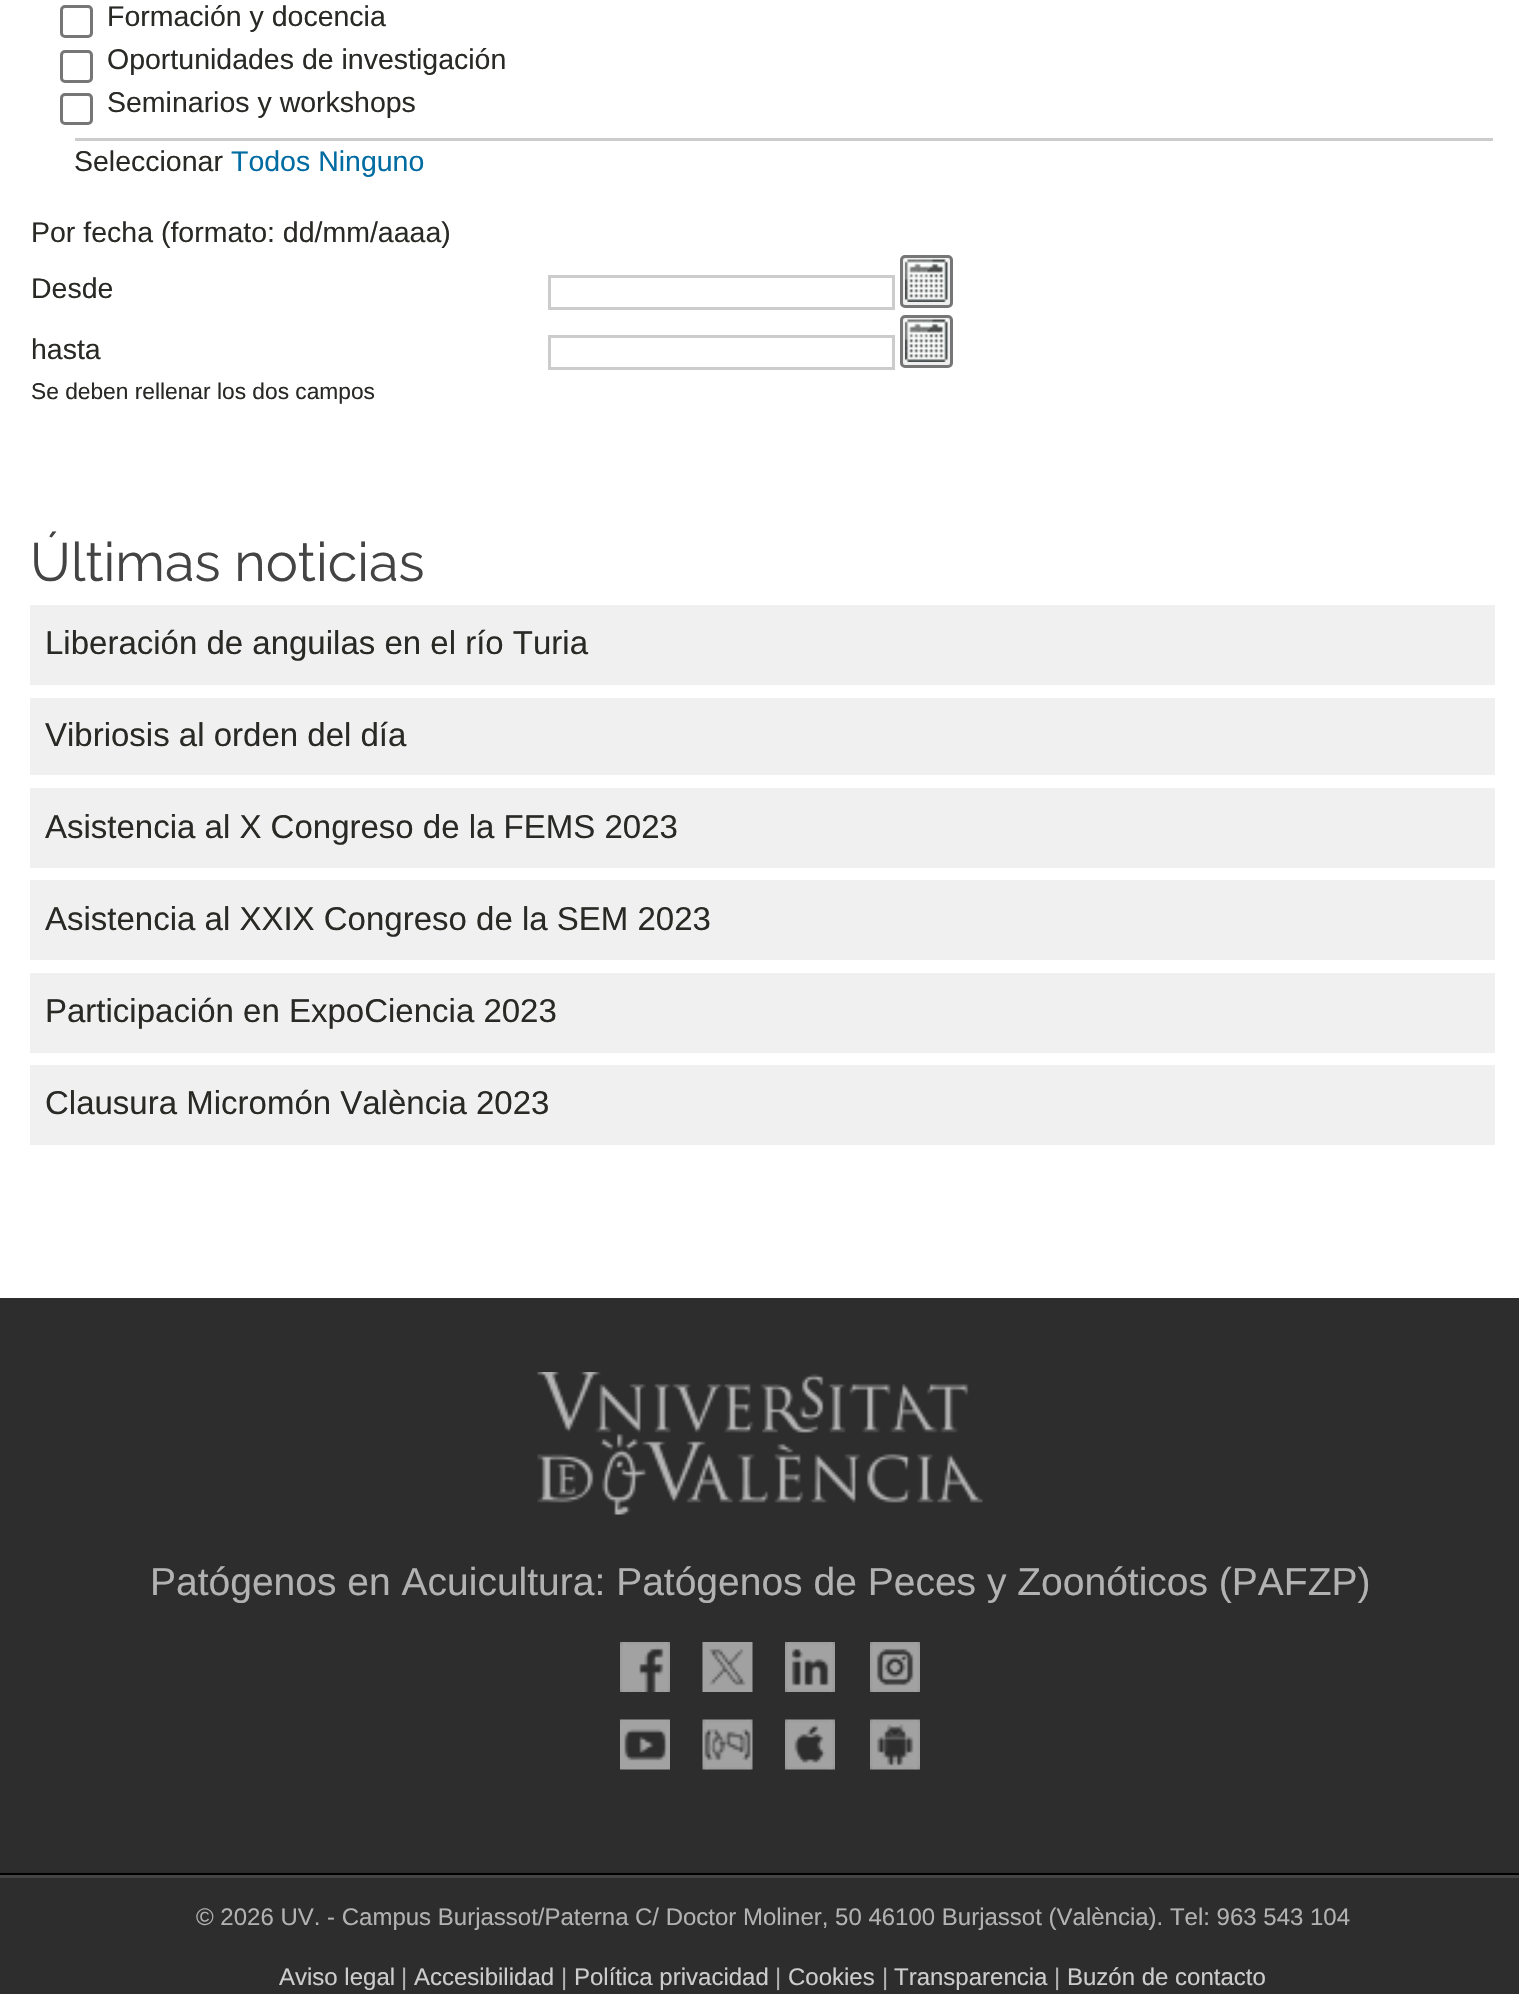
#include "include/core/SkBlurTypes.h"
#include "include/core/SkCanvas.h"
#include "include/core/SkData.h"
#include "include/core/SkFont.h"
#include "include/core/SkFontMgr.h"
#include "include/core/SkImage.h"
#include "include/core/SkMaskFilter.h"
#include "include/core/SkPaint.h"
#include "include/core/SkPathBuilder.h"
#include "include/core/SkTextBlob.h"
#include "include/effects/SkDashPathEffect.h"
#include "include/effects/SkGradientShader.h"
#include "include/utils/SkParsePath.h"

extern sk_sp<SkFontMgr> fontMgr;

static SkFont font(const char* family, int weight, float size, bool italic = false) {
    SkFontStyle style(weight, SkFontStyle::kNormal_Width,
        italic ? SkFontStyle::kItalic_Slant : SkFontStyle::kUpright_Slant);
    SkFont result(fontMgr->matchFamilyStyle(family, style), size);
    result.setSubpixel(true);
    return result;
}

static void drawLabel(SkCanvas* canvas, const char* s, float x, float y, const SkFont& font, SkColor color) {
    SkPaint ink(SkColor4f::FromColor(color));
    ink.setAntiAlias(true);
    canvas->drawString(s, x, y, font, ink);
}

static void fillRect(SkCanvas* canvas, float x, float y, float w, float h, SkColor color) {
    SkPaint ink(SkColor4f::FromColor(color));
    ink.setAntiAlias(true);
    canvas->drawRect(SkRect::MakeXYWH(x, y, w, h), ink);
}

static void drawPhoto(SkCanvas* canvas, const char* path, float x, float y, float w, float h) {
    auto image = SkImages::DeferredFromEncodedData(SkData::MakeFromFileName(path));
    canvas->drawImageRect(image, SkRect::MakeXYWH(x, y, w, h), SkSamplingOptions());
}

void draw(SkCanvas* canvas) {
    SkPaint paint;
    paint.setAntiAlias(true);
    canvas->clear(0xFFFFFFFF);
    paint.setStroke(true);
    paint.setStrokeWidth(3);
    paint.setColor(0xFF767676);
    canvas->drawRoundRect(SkRect::MakeXYWH(61.5f, 6.5f, 30, 30), 3.5f, 3.5f, paint);
    SkFont font1 = font("Liberation Sans", 400, 28.5f);
    drawLabel(canvas, "Formación y docencia", 107, 26, font1, 0xFF292A25);
    canvas->drawRoundRect(SkRect::MakeXYWH(61.5f, 51.5f, 30, 30), 3.5f, 3.5f, paint);
    drawLabel(canvas, "Oportunidades de investigación", 107, 69, font1, 0xFF292A25);
    canvas->drawRoundRect(SkRect::MakeXYWH(61.5f, 94.5f, 30, 29), 3.5f, 3.5f, paint);
    drawLabel(canvas, "Seminarios y workshops", 107, 112, font1, 0xFF292A25);
    fillRect(canvas, 75, 138, 1418, 3, 0xFFCCCCCC);
    drawLabel(canvas, "Seleccionar", 74, 171, font1, 0xFF292A25);
    drawLabel(canvas, "Todos Ninguno", 231, 171, font1, 0xFF016CA2);
    drawLabel(canvas, "Por fecha (formato: dd/mm/aaaa)", 31, 242, font1, 0xFF292A25);
    drawLabel(canvas, "Desde", 31, 298, font1, 0xFF292A25);
    paint.setColor(0xFFCCCCCC);
    canvas->drawRect(SkRect::MakeXYWH(549.5f, 276.5f, 344, 32), paint);
    paint.setStroke(false);
    paint.setColor(0xFFEFEFEF);
    canvas->drawRoundRect(SkRect::MakeXYWH(901.5f, 256.5f, 50, 50), 3.5f, 3.5f, paint);
    paint.setStroke(true);
    paint.setColor(0xFF767676);
    canvas->drawRoundRect(SkRect::MakeXYWH(901.5f, 256.5f, 50, 50), 3.5f, 3.5f, paint);
    drawPhoto(canvas, "assets/img1.png", 905, 259, 43, 43);
    drawLabel(canvas, "hasta", 31, 359, font1, 0xFF292A25);
    paint.setColor(0xFFCCCCCC);
    canvas->drawRect(SkRect::MakeXYWH(549.5f, 336.5f, 344, 32), paint);
    paint.setStroke(false);
    paint.setColor(0xFFEFEFEF);
    canvas->drawRoundRect(SkRect::MakeXYWH(901.5f, 316.5f, 50, 50), 3.5f, 3.5f, paint);
    paint.setStroke(true);
    paint.setColor(0xFF767676);
    canvas->drawRoundRect(SkRect::MakeXYWH(901.5f, 316.5f, 50, 50), 3.5f, 3.5f, paint);
    drawPhoto(canvas, "assets/img1.png", 905, 319, 43, 43);
    SkFont font2 = font("Liberation Sans", 400, 22.75f);
    drawLabel(canvas, "Se deben rellenar los dos campos", 31, 399, font2, 0xFF292A25);
    SkFont font3 = font("Raleway", 400, 54);
    drawLabel(canvas, "Últimas noticias", 30, 581, font3, 0xFF444444);
    fillRect(canvas, 30, 605, 1465, 80, 0xFFF0F0F0);
    SkFont font4 = font("Liberation Sans", 400, 33);
    drawLabel(canvas, "Liberación de anguilas en el río Turia", 45, 654, font4, 0xFF292A25);
    fillRect(canvas, 30, 698, 1465, 77, 0xFFF0F0F0);
    drawLabel(canvas, "Vibriosis al orden del día", 45, 746, font4, 0xFF292A25);
    fillRect(canvas, 30, 788, 1465, 80, 0xFFF0F0F0);
    drawLabel(canvas, "Asistencia al X Congreso de la FEMS 2023", 45, 838, font4, 0xFF292A25);
    fillRect(canvas, 30, 880, 1465, 80, 0xFFF0F0F0);
    drawLabel(canvas, "Asistencia al XXIX Congreso de la SEM 2023", 45, 930, font4, 0xFF292A25);
    fillRect(canvas, 30, 973, 1465, 80, 0xFFF0F0F0);
    drawLabel(canvas, "Participación en ExpoCiencia 2023", 45, 1022, font4, 0xFF292A25);
    fillRect(canvas, 30, 1065, 1465, 80, 0xFFF0F0F0);
    drawLabel(canvas, "Clausura Micromón València 2023", 45, 1114, font4, 0xFF292A25);
    fillRect(canvas, 0, 1298, 1519, 696, 0xFF2D2D2D);
    drawPhoto(canvas, "assets/img2.png", 537, 1372, 446, 143);
    SkFont font5 = font("Liberation Sans", 400, 39);
    drawLabel(canvas, "Patógenos en Acuicultura: Patógenos de Peces y Zoonóticos (PAFZP)", 150, 1595, font5, 0xFFB2B2B2);
    drawPhoto(canvas, "assets/img3.png", 620, 1642, 50, 50);
    drawPhoto(canvas, "assets/img4.png", 702, 1642, 51, 50);
    drawPhoto(canvas, "assets/img5.png", 785, 1642, 50, 50);
    drawPhoto(canvas, "assets/img6.png", 870, 1642, 50, 50);
    drawPhoto(canvas, "assets/img7.png", 620, 1719, 50, 51);
    drawPhoto(canvas, "assets/img8.png", 702, 1719, 51, 51);
    drawPhoto(canvas, "assets/img9.png", 785, 1719, 50, 51);
    drawPhoto(canvas, "assets/img10.png", 870, 1719, 50, 51);
    fillRect(canvas, 0, 1873, 1519, 2, 0xFF000000);
    fillRect(canvas, 0, 1875, 1519, 3, 0xFF444444);
    SkFont font6 = font("Liberation Sans", 400, 24);
    drawLabel(canvas, "© 2026 UV. - Campus Burjassot/Paterna", 196, 1925, font6, 0xFFB2B2B2);
    drawLabel(canvas, "C/ Doctor Moliner, 50 46100 Burjassot (València). Tel: 963 543 104", 635, 1925, font6, 0xFFB2B2B2);
    drawLabel(canvas, "Aviso legal", 279, 1985, font6, 0xFFCCCCCC);
    drawLabel(canvas, "|", 401, 1985, font6, 0xFFB2B2B2);
    drawLabel(canvas, "Accesibilidad", 414, 1985, font6, 0xFFCCCCCC);
    drawLabel(canvas, "|", 561, 1985, font6, 0xFFB2B2B2);
    drawLabel(canvas, "Política privacidad", 574, 1985, font6, 0xFFCCCCCC);
    drawLabel(canvas, "|", 775, 1985, font6, 0xFFB2B2B2);
    drawLabel(canvas, "Cookies", 788, 1985, font6, 0xFFCCCCCC);
    drawLabel(canvas, "|", 882, 1985, font6, 0xFFB2B2B2);
    drawLabel(canvas, "Transparencia", 894, 1985, font6, 0xFFCCCCCC);
    drawLabel(canvas, "|", 1054, 1985, font6, 0xFFB2B2B2);
    drawLabel(canvas, "Buzón de contacto", 1067, 1985, font6, 0xFFCCCCCC);
}
